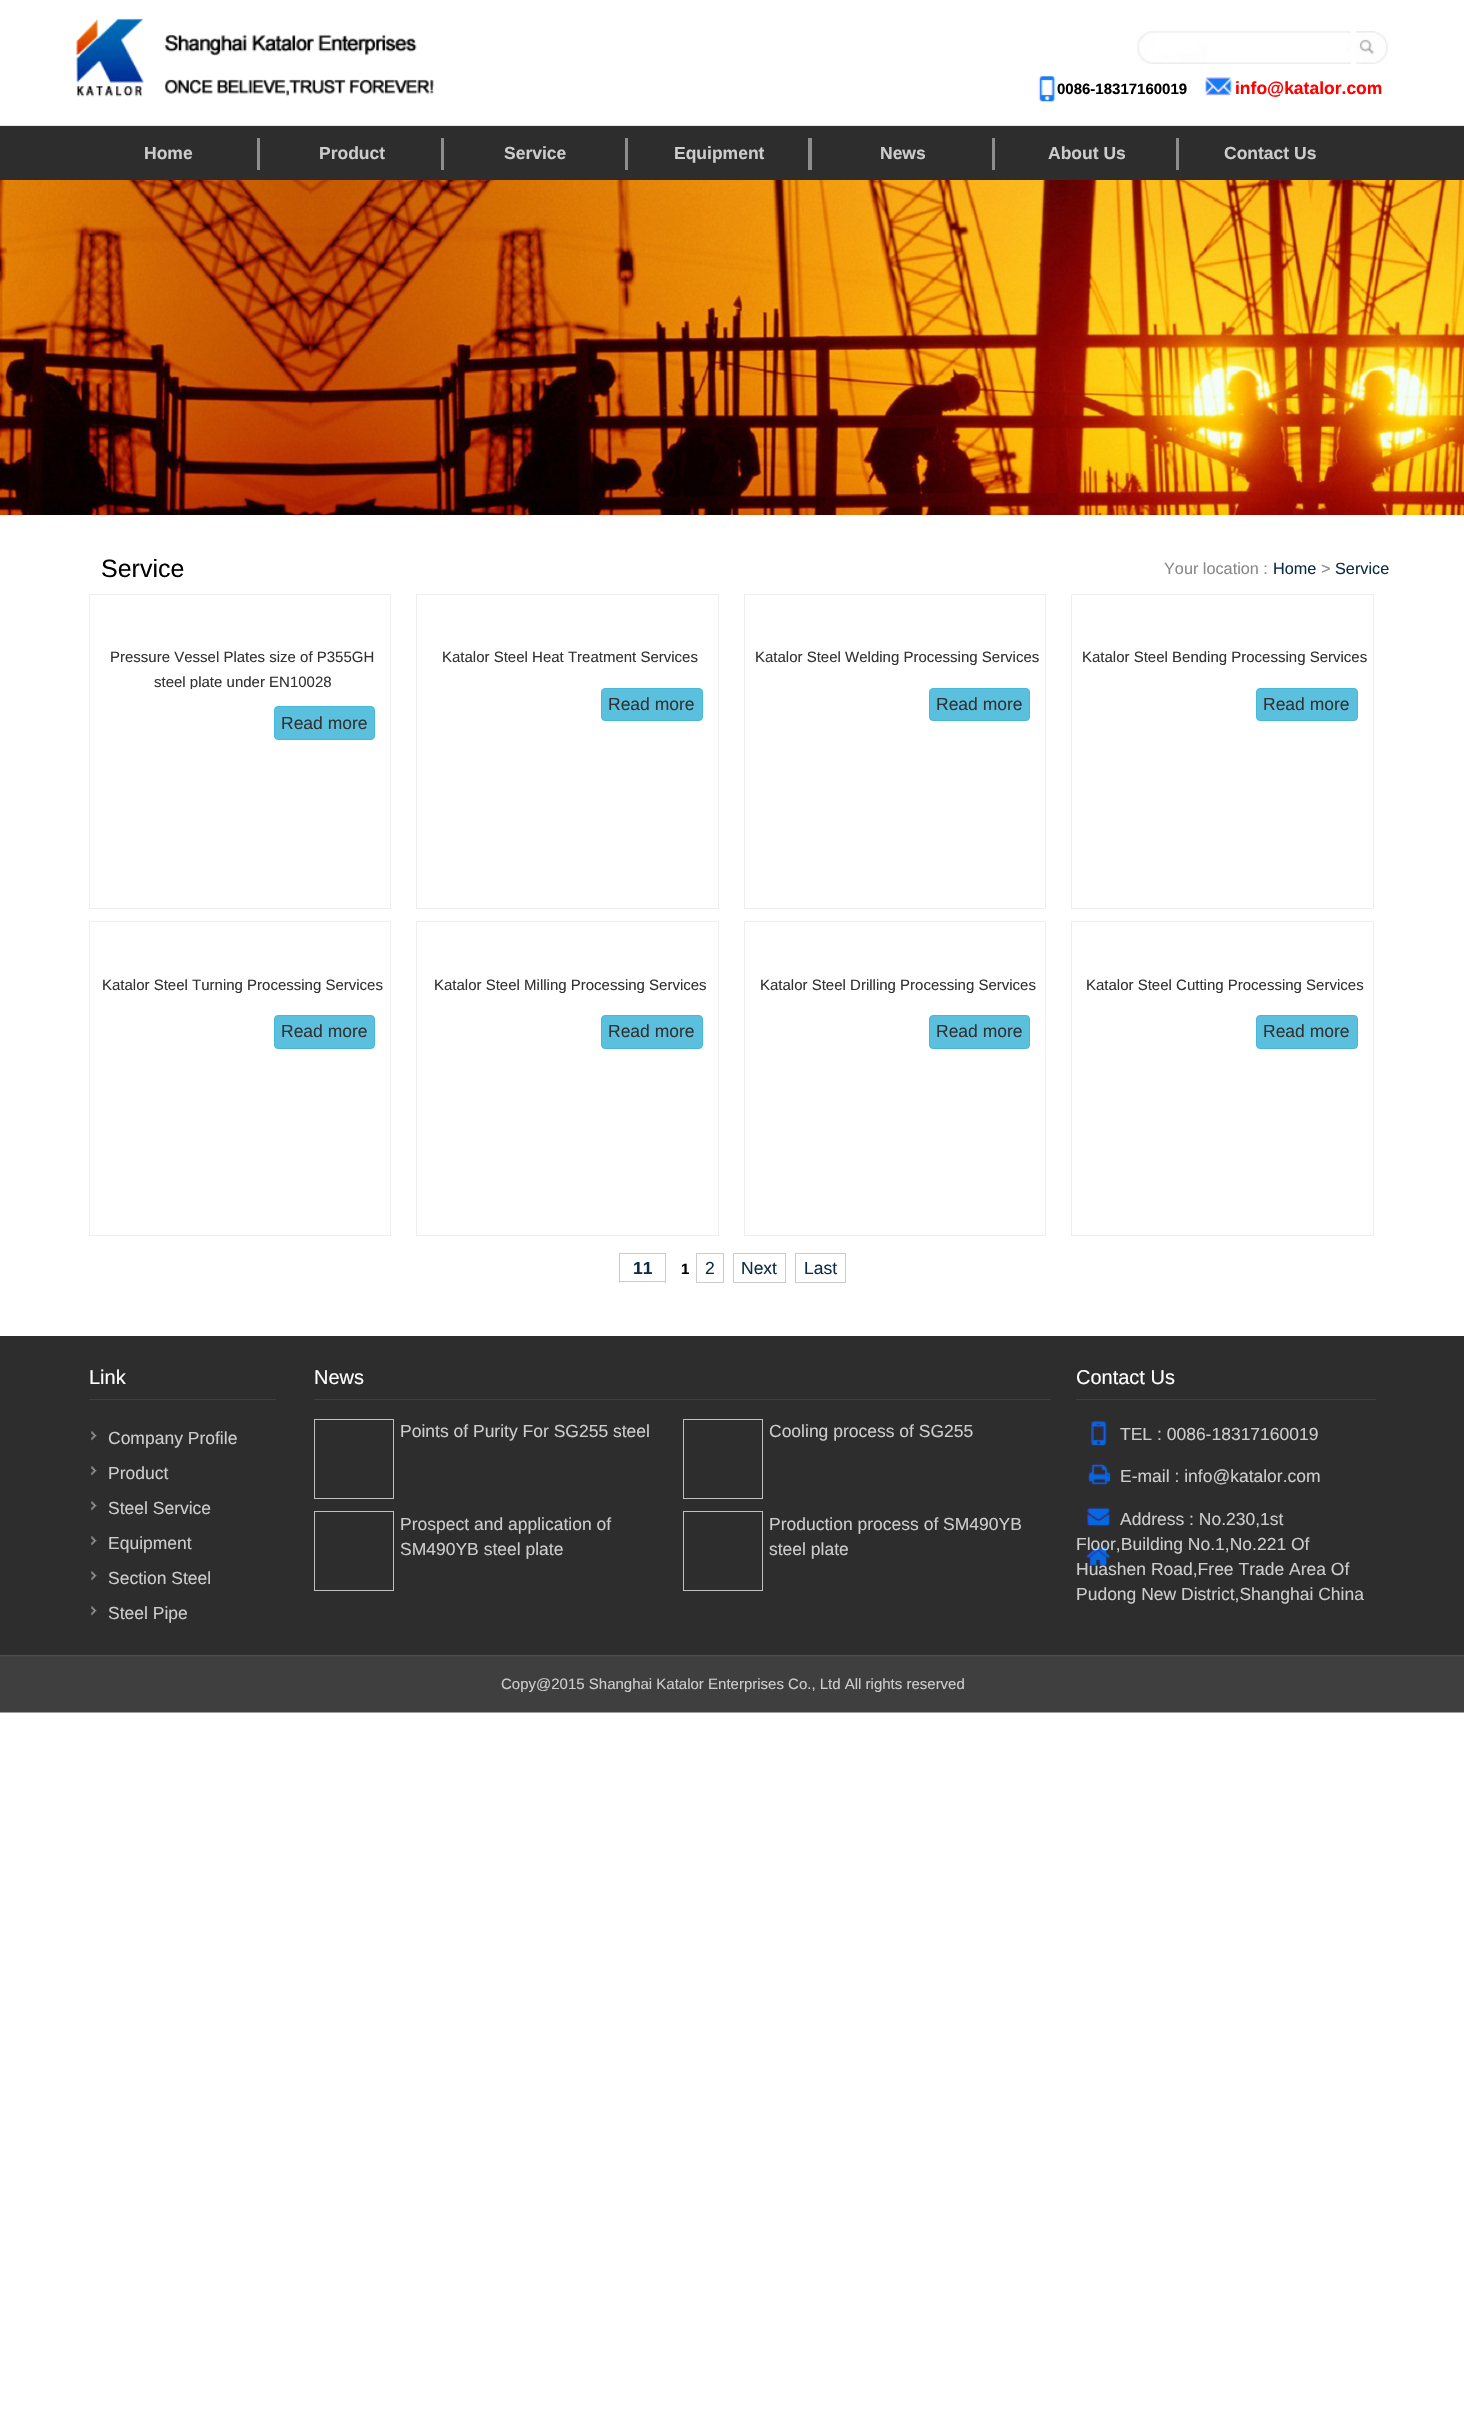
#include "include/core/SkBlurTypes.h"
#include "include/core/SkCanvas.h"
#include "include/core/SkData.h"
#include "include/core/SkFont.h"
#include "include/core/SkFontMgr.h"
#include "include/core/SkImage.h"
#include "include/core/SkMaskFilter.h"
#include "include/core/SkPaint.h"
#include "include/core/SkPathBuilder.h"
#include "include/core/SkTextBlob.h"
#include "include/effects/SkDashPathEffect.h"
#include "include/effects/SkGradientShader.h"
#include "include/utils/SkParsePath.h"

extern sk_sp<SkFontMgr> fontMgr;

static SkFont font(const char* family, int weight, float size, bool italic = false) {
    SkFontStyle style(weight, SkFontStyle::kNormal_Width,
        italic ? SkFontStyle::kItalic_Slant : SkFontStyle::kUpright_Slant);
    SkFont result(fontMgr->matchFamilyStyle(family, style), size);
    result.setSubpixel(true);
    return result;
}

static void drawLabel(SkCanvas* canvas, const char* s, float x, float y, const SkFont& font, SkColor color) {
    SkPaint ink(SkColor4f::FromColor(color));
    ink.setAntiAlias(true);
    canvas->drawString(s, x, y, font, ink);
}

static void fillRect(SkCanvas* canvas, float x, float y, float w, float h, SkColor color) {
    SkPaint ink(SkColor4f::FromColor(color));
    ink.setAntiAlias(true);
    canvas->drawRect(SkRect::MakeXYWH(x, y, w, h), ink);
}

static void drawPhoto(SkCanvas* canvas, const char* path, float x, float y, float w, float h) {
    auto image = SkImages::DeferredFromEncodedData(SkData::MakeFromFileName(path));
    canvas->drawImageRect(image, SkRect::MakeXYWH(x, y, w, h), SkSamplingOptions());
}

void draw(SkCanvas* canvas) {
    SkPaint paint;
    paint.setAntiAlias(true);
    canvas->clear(0xFFFFFFFF);
    drawPhoto(canvas, "assets/img1.png", 76, 18, 358, 79);
    drawPhoto(canvas, "assets/img2.png", 1137, 31, 214, 33);
    drawPhoto(canvas, "assets/img3.png", 1356, 31, 32, 33);
    drawPhoto(canvas, "assets/img4.png", 1356, 31, 19, 1);
    drawPhoto(canvas, "assets/img5.png", 1038, 76, 18, 26);
    SkFont font1 = font("Liberation Sans", 700, 15);
    drawLabel(canvas, "0086-18317160019", 1057, 94, font1, 0xFF000000);
    drawPhoto(canvas, "assets/img6.png", 1205, 77, 27, 19);
    SkFont font2 = font("Liberation Sans", 700, 17.5f);
    drawLabel(canvas, "info@katalor.com", 1235, 94, font2, 0xFFFF0000);
    fillRect(canvas, 0, 126, 1464, 54, 0xFF2D2D2D);
    fillRect(canvas, 0, 125, 1464, 1, 0xFFE8E8E8);
    fillRect(canvas, 257, 138, 3, 32, 0xFF8D8D8D);
    drawLabel(canvas, "Home", 144, 159, font2, 0xFFCCCCCC);
    fillRect(canvas, 441, 138, 3, 32, 0xFF8D8D8D);
    drawLabel(canvas, "Product", 319, 159, font2, 0xFFCCCCCC);
    fillRect(canvas, 625, 138, 3, 32, 0xFF8D8D8D);
    drawLabel(canvas, "Service", 504, 159, font2, 0xFFCCCCCC);
    fillRect(canvas, 808, 138, 4, 32, 0xFF8D8D8D);
    drawLabel(canvas, "Equipment", 674, 159, font2, 0xFFCCCCCC);
    fillRect(canvas, 992, 138, 3, 32, 0xFF8D8D8D);
    drawLabel(canvas, "News", 880, 159, font2, 0xFFCCCCCC);
    fillRect(canvas, 1176, 138, 3, 32, 0xFF8D8D8D);
    drawLabel(canvas, "About Us", 1048, 159, font2, 0xFFCCCCCC);
    drawLabel(canvas, "Contact Us", 1224, 159, font2, 0xFFCCCCCC);
    drawPhoto(canvas, "assets/img7.png", 0, 180, 1464, 335);
    SkFont font3 = font("Liberation Sans", 400, 25);
    drawLabel(canvas, "Service", 101, 577, font3, 0xFF000000);
    SkFont font4 = font("Liberation Sans", 400, 16.25f);
    drawLabel(canvas, "Your location :", 1164, 574, font4, 0xFF888888);
    drawLabel(canvas, "Home", 1273, 574, font4, 0xFF0D2C48);
    drawLabel(canvas, ">", 1321, 574, font4, 0xFF888888);
    drawLabel(canvas, "Service", 1335, 574, font4, 0xFF0D2C48);
    paint.setStroke(true);
    paint.setStrokeWidth(1);
    paint.setColor(0xFFEEEEEE);
    canvas->drawRect(SkRect::MakeXYWH(89.5f, 594.5f, 301, 314), paint);
    SkFont font5 = font("Liberation Sans", 400, 15);
    drawLabel(canvas, "Pressure Vessel Plates size of P355GH", 110, 662, font5, 0xFF333333);
    canvas->save();
    canvas->clipRect(SkRect::MakeXYWH(93, 645, 297, 44));
    drawLabel(canvas, "steel plate under EN10028", 154, 687, font5, 0xFF333333);
    canvas->restore();
    paint.setStroke(false);
    paint.setColor(0xFF5BC0DE);
    canvas->drawRoundRect(SkRect::MakeXYWH(274.5f, 706.5f, 100, 33), 3.5f, 3.5f, paint);
    paint.setStroke(true);
    paint.setColor(0xFF46B8DA);
    canvas->drawRoundRect(SkRect::MakeXYWH(274.5f, 706.5f, 100, 33), 3.5f, 3.5f, paint);
    SkFont font6 = font("Liberation Sans", 400, 17.5f);
    drawLabel(canvas, "Read more", 281, 729, font6, 0xFF333333);
    paint.setColor(0xFFEEEEEE);
    canvas->drawRect(SkRect::MakeXYWH(416.5f, 594.5f, 302, 314), paint);
    drawLabel(canvas, "Katalor Steel Heat Treatment Services", 442, 662, font5, 0xFF333333);
    paint.setStroke(false);
    paint.setColor(0xFF5BC0DE);
    canvas->drawRoundRect(SkRect::MakeXYWH(601.5f, 688.5f, 101, 32), 3.5f, 3.5f, paint);
    paint.setStroke(true);
    paint.setColor(0xFF46B8DA);
    canvas->drawRoundRect(SkRect::MakeXYWH(601.5f, 688.5f, 101, 32), 3.5f, 3.5f, paint);
    drawLabel(canvas, "Read more", 608, 710, font6, 0xFF333333);
    paint.setColor(0xFFEEEEEE);
    canvas->drawRect(SkRect::MakeXYWH(744.5f, 594.5f, 301, 314), paint);
    drawLabel(canvas, "Katalor Steel Welding Processing Services", 755, 662, font5, 0xFF333333);
    paint.setStroke(false);
    paint.setColor(0xFF5BC0DE);
    canvas->drawRoundRect(SkRect::MakeXYWH(929.5f, 688.5f, 100, 32), 3.5f, 3.5f, paint);
    paint.setStroke(true);
    paint.setColor(0xFF46B8DA);
    canvas->drawRoundRect(SkRect::MakeXYWH(929.5f, 688.5f, 100, 32), 3.5f, 3.5f, paint);
    drawLabel(canvas, "Read more", 936, 710, font6, 0xFF333333);
    paint.setColor(0xFFEEEEEE);
    canvas->drawRect(SkRect::MakeXYWH(1071.5f, 594.5f, 302, 314), paint);
    drawLabel(canvas, "Katalor Steel Bending Processing Services", 1082, 662, font5, 0xFF333333);
    paint.setStroke(false);
    paint.setColor(0xFF5BC0DE);
    canvas->drawRoundRect(SkRect::MakeXYWH(1256.5f, 688.5f, 101, 32), 3.5f, 3.5f, paint);
    paint.setStroke(true);
    paint.setColor(0xFF46B8DA);
    canvas->drawRoundRect(SkRect::MakeXYWH(1256.5f, 688.5f, 101, 32), 3.5f, 3.5f, paint);
    drawLabel(canvas, "Read more", 1263, 710, font6, 0xFF333333);
    paint.setColor(0xFFEEEEEE);
    canvas->drawRect(SkRect::MakeXYWH(89.5f, 921.5f, 301, 314), paint);
    drawLabel(canvas, "Katalor Steel Turning Processing Services", 102, 990, font5, 0xFF333333);
    paint.setStroke(false);
    paint.setColor(0xFF5BC0DE);
    canvas->drawRoundRect(SkRect::MakeXYWH(274.5f, 1015.5f, 100, 33), 3.5f, 3.5f, paint);
    paint.setStroke(true);
    paint.setColor(0xFF46B8DA);
    canvas->drawRoundRect(SkRect::MakeXYWH(274.5f, 1015.5f, 100, 33), 3.5f, 3.5f, paint);
    drawLabel(canvas, "Read more", 281, 1037, font6, 0xFF333333);
    paint.setColor(0xFFEEEEEE);
    canvas->drawRect(SkRect::MakeXYWH(416.5f, 921.5f, 302, 314), paint);
    drawLabel(canvas, "Katalor Steel Milling Processing Services", 434, 990, font5, 0xFF333333);
    paint.setStroke(false);
    paint.setColor(0xFF5BC0DE);
    canvas->drawRoundRect(SkRect::MakeXYWH(601.5f, 1015.5f, 101, 33), 3.5f, 3.5f, paint);
    paint.setStroke(true);
    paint.setColor(0xFF46B8DA);
    canvas->drawRoundRect(SkRect::MakeXYWH(601.5f, 1015.5f, 101, 33), 3.5f, 3.5f, paint);
    drawLabel(canvas, "Read more", 608, 1037, font6, 0xFF333333);
    paint.setColor(0xFFEEEEEE);
    canvas->drawRect(SkRect::MakeXYWH(744.5f, 921.5f, 301, 314), paint);
    drawLabel(canvas, "Katalor Steel Drilling Processing Services", 760, 990, font5, 0xFF333333);
    paint.setStroke(false);
    paint.setColor(0xFF5BC0DE);
    canvas->drawRoundRect(SkRect::MakeXYWH(929.5f, 1015.5f, 100, 33), 3.5f, 3.5f, paint);
    paint.setStroke(true);
    paint.setColor(0xFF46B8DA);
    canvas->drawRoundRect(SkRect::MakeXYWH(929.5f, 1015.5f, 100, 33), 3.5f, 3.5f, paint);
    drawLabel(canvas, "Read more", 936, 1037, font6, 0xFF333333);
    paint.setColor(0xFFEEEEEE);
    canvas->drawRect(SkRect::MakeXYWH(1071.5f, 921.5f, 302, 314), paint);
    drawLabel(canvas, "Katalor Steel Cutting Processing Services", 1086, 990, font5, 0xFF333333);
    paint.setStroke(false);
    paint.setColor(0xFF5BC0DE);
    canvas->drawRoundRect(SkRect::MakeXYWH(1256.5f, 1015.5f, 101, 33), 3.5f, 3.5f, paint);
    paint.setStroke(true);
    paint.setColor(0xFF46B8DA);
    canvas->drawRoundRect(SkRect::MakeXYWH(1256.5f, 1015.5f, 101, 33), 3.5f, 3.5f, paint);
    drawLabel(canvas, "Read more", 1263, 1037, font6, 0xFF333333);
    drawLabel(canvas, "11", 633, 1274, font2, 0xFF0D2C48);
    fillRect(canvas, 619, 1253, 47, 1, 0xFFCCCCCC);
    fillRect(canvas, 619, 1281, 34, 1, 0xFFCCCCCC);
    fillRect(canvas, 619, 1253, 1, 30, 0xFFCCCCCC);
    fillRect(canvas, 665, 1253, 1, 30, 0xFFCCCCCC);
    fillRect(canvas, 653, 1281, 13, 1, 0xFFCCCCCC);
    drawLabel(canvas, "1", 681, 1274, font1, 0xFF000000);
    paint.setColor(0xFFCCCCCC);
    canvas->drawRect(SkRect::MakeXYWH(696.5f, 1253.5f, 27, 29), paint);
    drawLabel(canvas, "2", 705, 1274, font6, 0xFF0D2C48);
    canvas->drawRect(SkRect::MakeXYWH(733.5f, 1253.5f, 52, 29), paint);
    drawLabel(canvas, "Next", 741, 1274, font6, 0xFF0D2C48);
    canvas->drawRect(SkRect::MakeXYWH(795.5f, 1253.5f, 50, 29), paint);
    drawLabel(canvas, "Last", 804, 1274, font6, 0xFF0D2C48);
    fillRect(canvas, 0, 1336, 1464, 319, 0xFF2D2D2D);
    fillRect(canvas, 89, 1399, 187, 1, 0xFF3F3F3F);
    SkFont font7 = font("Liberation Sans", 400, 20);
    drawLabel(canvas, "Link", 89, 1384, font7, 0xFFFFFFFF);
    drawPhoto(canvas, "assets/img8.png", 91, 1431, 6, 10);
    drawLabel(canvas, "Company Profile", 108, 1444, font6, 0xFFCCCCCC);
    drawPhoto(canvas, "assets/img8.png", 91, 1466, 6, 10);
    drawLabel(canvas, "Product", 108, 1479, font6, 0xFFCCCCCC);
    drawPhoto(canvas, "assets/img8.png", 91, 1501, 6, 10);
    drawLabel(canvas, "Steel Service", 108, 1514, font6, 0xFFCCCCCC);
    drawPhoto(canvas, "assets/img8.png", 91, 1536, 6, 10);
    drawLabel(canvas, "Equipment", 108, 1549, font6, 0xFFCCCCCC);
    drawPhoto(canvas, "assets/img9.png", 91, 1571, 6, 10);
    drawLabel(canvas, "Section Steel", 108, 1584, font6, 0xFFCCCCCC);
    drawPhoto(canvas, "assets/img8.png", 91, 1606, 6, 10);
    drawLabel(canvas, "Steel Pipe", 108, 1619, font6, 0xFFCCCCCC);
    fillRect(canvas, 314, 1399, 737, 1, 0xFF3F3F3F);
    drawLabel(canvas, "News", 314, 1384, font7, 0xFFFFFFFF);
    paint.setColor(0xFFC0C0C0);
    canvas->drawRect(SkRect::MakeXYWH(314.5f, 1419.5f, 79, 79), paint);
    drawLabel(canvas, "Points of Purity For SG255 steel", 400, 1437, font6, 0xFFCCCCCC);
    canvas->drawRect(SkRect::MakeXYWH(683.5f, 1419.5f, 79, 79), paint);
    drawLabel(canvas, "Cooling process of SG255", 769, 1437, font6, 0xFFCCCCCC);
    canvas->drawRect(SkRect::MakeXYWH(314.5f, 1511.5f, 79, 79), paint);
    drawLabel(canvas, "Prospect and application of", 400, 1530, font6, 0xFFCCCCCC);
    drawLabel(canvas, "SM490YB steel plate", 400, 1555, font6, 0xFFCCCCCC);
    canvas->drawRect(SkRect::MakeXYWH(683.5f, 1511.5f, 79, 79), paint);
    drawLabel(canvas, "Production process of SM490YB", 769, 1530, font6, 0xFFCCCCCC);
    drawLabel(canvas, "steel plate", 769, 1555, font6, 0xFFCCCCCC);
    fillRect(canvas, 1076, 1399, 300, 1, 0xFF3F3F3F);
    drawLabel(canvas, "Contact Us", 1076, 1384, font7, 0xFFFFFFFF);
    drawPhoto(canvas, "assets/img10.png", 1086, 1421, 26, 145);
    drawLabel(canvas, "TEL : 0086-18317160019", 1120, 1440, font6, 0xFFCCCCCC);
    drawLabel(canvas, "E-mail : info@katalor.com", 1120, 1482, font6, 0xFFCCCCCC);
    drawLabel(canvas, "Address : No.230,1st", 1120, 1525, font6, 0xFFCCCCCC);
    drawLabel(canvas, "Floor,Building No.1,No.221 Of", 1076, 1550, font6, 0xFFCCCCCC);
    drawLabel(canvas, "Huashen Road,Free Trade Area Of", 1076, 1575, font6, 0xFFCCCCCC);
    drawLabel(canvas, "Pudong New District,Shanghai China", 1076, 1600, font6, 0xFFCCCCCC);
    drawPhoto(canvas, "assets/img11.png", 0, 1655, 1464, 58);
    drawLabel(canvas, "Copy@2015 Shanghai Katalor Enterprises Co., Ltd All rights reserved", 501, 1689, font5, 0xFFCCCCCC);
}
